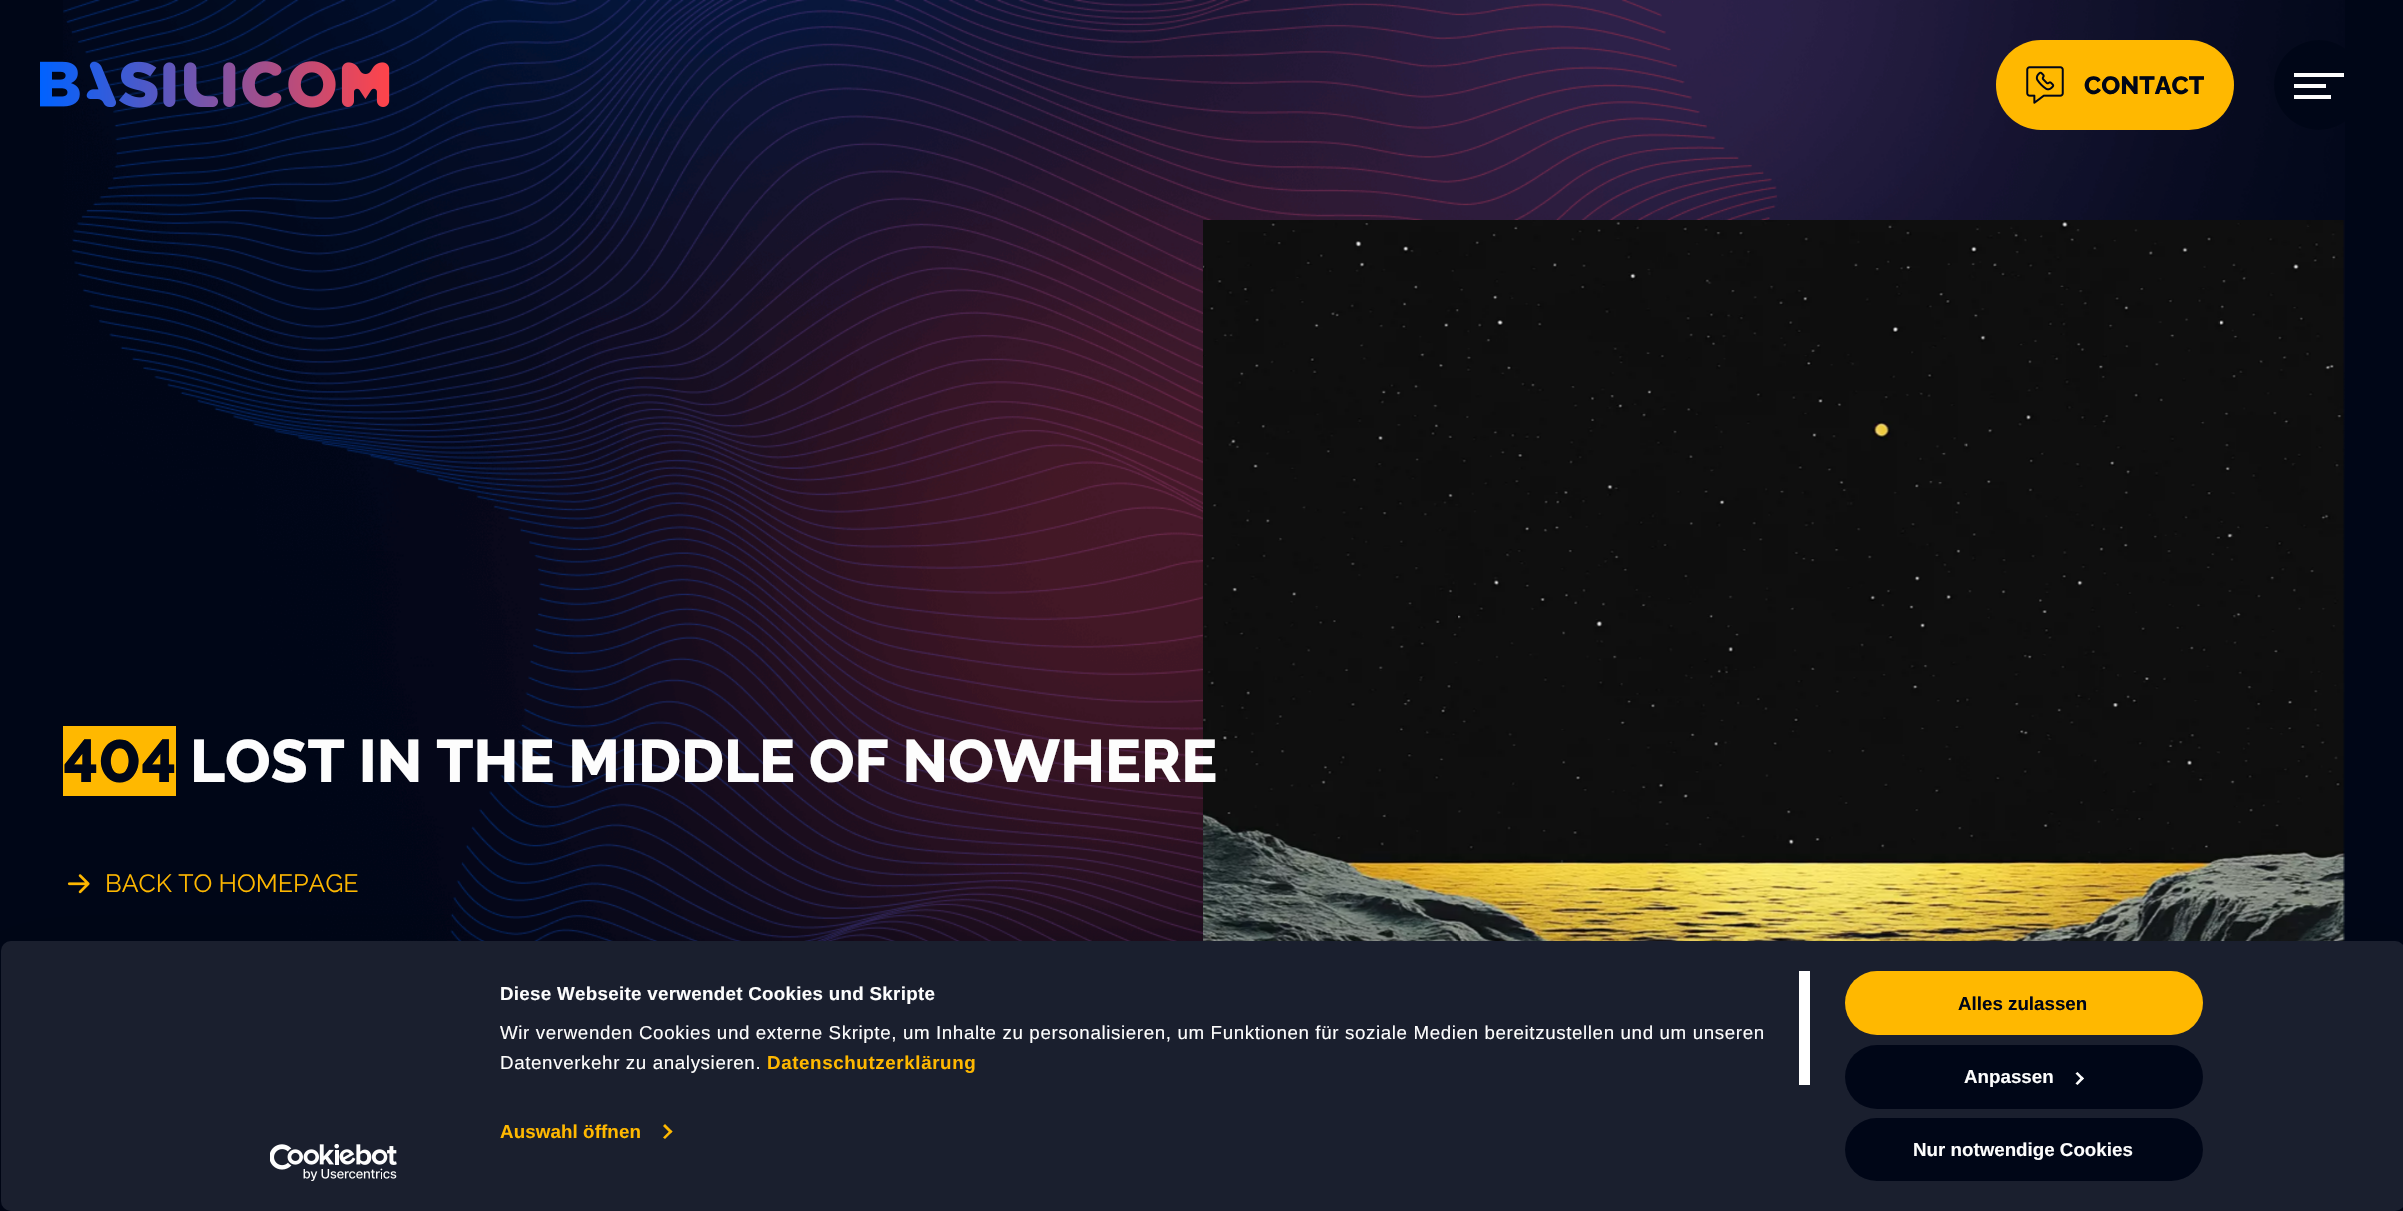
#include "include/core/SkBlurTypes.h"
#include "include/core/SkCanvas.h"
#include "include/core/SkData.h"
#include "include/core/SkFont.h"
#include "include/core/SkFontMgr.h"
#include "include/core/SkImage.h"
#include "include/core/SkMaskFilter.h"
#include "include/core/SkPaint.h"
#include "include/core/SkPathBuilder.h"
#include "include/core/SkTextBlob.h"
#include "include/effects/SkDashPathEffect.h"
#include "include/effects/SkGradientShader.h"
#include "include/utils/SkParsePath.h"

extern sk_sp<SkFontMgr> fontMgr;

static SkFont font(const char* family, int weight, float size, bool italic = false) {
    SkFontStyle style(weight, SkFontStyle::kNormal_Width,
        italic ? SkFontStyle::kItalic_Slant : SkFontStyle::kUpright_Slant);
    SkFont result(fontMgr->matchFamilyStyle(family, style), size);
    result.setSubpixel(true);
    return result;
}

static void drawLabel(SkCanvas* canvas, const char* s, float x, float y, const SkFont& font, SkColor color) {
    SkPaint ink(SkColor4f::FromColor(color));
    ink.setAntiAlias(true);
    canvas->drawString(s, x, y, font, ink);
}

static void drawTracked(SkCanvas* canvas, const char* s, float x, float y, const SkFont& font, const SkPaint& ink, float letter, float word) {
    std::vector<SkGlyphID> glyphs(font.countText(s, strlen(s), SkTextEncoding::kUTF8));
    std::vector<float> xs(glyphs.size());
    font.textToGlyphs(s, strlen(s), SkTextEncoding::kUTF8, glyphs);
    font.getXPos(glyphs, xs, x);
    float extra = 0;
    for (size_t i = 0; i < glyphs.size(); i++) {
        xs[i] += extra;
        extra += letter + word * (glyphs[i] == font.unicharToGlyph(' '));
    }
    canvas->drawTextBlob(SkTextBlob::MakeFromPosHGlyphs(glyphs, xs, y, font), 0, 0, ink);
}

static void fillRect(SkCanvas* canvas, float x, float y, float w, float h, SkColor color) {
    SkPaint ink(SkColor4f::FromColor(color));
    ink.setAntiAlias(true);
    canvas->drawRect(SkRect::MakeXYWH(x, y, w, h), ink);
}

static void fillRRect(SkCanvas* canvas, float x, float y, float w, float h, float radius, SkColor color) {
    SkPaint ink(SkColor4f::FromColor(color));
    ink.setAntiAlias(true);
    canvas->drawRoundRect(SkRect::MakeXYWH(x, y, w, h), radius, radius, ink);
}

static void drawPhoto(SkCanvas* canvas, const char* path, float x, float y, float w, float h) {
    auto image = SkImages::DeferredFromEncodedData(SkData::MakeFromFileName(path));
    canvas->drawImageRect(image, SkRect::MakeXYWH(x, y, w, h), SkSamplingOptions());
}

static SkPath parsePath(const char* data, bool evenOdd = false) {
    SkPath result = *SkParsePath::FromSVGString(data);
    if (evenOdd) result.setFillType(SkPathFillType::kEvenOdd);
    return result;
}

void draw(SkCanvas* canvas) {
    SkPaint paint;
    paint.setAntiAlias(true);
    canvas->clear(0xFF000617);
    drawPhoto(canvas, "assets/img1.png", 63, 0, 2282, 941);
    drawPhoto(canvas, "assets/img2.png", 40, 61, 350, 47);
    fillRRect(canvas, 1996, 40, 238, 90, 45, 0xFFFFB800);
    drawPhoto(canvas, "assets/img3.png", 2026, 66, 38, 38);
    SkFont font1 = font("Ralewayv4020", 800, 25);
    drawLabel(canvas, "CONTACT", 2084, 94, font1, 0xFF000617);
    paint.setColor(0xFF000617);
    canvas->drawCircle(2319, 85, 45, paint);
    fillRect(canvas, 2294, 73, 50, 4, 0xFFFDFDFD);
    fillRect(canvas, 2294, 84, 32, 4, 0xFFFDFDFD);
    fillRect(canvas, 2294, 95, 37, 4, 0xFFFDFDFD);
    fillRect(canvas, 63, 726, 113, 70, 0xFFFFB800);
    SkFont font2 = font("Ralewayv4020", 800, 60);
    drawLabel(canvas, "404", 63, 782, font2, 0xFF000617);
    drawPhoto(canvas, "assets/img5.png", 1203, 220, 1142, 721);
    drawLabel(canvas, "LOST IN THE MIDDLE OF NOWHERE", 190, 782, font2, 0xFFFDFDFD);
    drawPhoto(canvas, "assets/img4.png", 67, 874, 23, 20);
    SkFont font3 = font("Ralewayv4020", 400, 25);
    drawLabel(canvas, "BACK TO HOMEPAGE", 105, 892, font3, 0xFFFFB800);
    canvas->save();
    canvas->clipPath(parsePath("M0 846H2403V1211H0ZM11 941H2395C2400.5 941 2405 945.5 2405 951V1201C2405 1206.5 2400.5 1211 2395 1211H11C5.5 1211 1 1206.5 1 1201V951C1 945.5 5.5 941 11 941Z", true), true);
    paint.setColor(0x4D000000);
    paint.setMaskFilter(SkMaskFilter::MakeBlur(kNormal_SkBlurStyle, 44));
    canvas->drawRoundRect(SkRect::MakeXYWH(1, 979, 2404, 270), 10, 10, paint);
    paint.setMaskFilter(nullptr);
    canvas->restore();
    fillRRect(canvas, 1, 941, 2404, 270, 10, 0xFF1A1F2E);
    drawPhoto(canvas, "assets/img6.png", 270, 1144, 127, 37);
    SkFont font4 = font("Liberation Sans", 700, 18.75f);
    paint.setColor(0xFFFDFDFD);
    drawTracked(canvas, "Diese Webseite verwendet Cookies und Skripte", 500, 1000, font4, paint, 0.3f, 0);
    SkFont font5 = font("Liberation Sans", 400, 18.75f);
    drawTracked(canvas, "Wir verwenden Cookies und externe Skripte, um Inhalte zu personalisieren, um Funktionen für soziale Medien bereitzustellen und um unseren", 500, 1039, font5, paint, 0.62f, 0);
    drawTracked(canvas, "Datenverkehr zu analysieren.", 500, 1069, font5, paint, 0.62f, 0);
    paint.setColor(0xFFFFB800);
    drawTracked(canvas, "Datenschutzerklärung", 767, 1069, font4, paint, 0.62f, 0);
    fillRect(canvas, 1799, 971, 11, 114, 0xFFFFFFFF);
    drawTracked(canvas, "Auswahl öffnen", 500, 1138, font4, paint, 0.1f, 0);
    canvas->drawPath(parsePath("M665 1124L672.5 1131.5L670.5 1133.5L663 1126Z"), paint);
    canvas->drawPath(parsePath("M670.5 1130L672.5 1131.5L665 1139L663 1137.5Z"), paint);
    fillRRect(canvas, 1845, 971, 358, 64, 32, 0xFFFFB800);
    drawLabel(canvas, "Alles zulassen", 1958, 1010, font4, 0xFF000617);
    fillRRect(canvas, 1845, 1045, 358, 64, 32, 0xFF000617);
    drawLabel(canvas, "Anpassen", 1964, 1083, font4, 0xFFFDFDFD);
    paint.setColor(0xFFFDFDFD);
    canvas->drawPath(parsePath("M2077.5 1072L2084 1078.5L2082 1080L2075.5 1073.5Z"), paint);
    canvas->drawPath(parsePath("M2082 1076.5L2084 1078.5L2077.5 1085L2075.5 1083.5Z"), paint);
    fillRRect(canvas, 1845, 1118, 358, 63, 31.5f, 0xFF000617);
    drawLabel(canvas, "Nur notwendige Cookies", 1913, 1156, font4, 0xFFFDFDFD);
}
